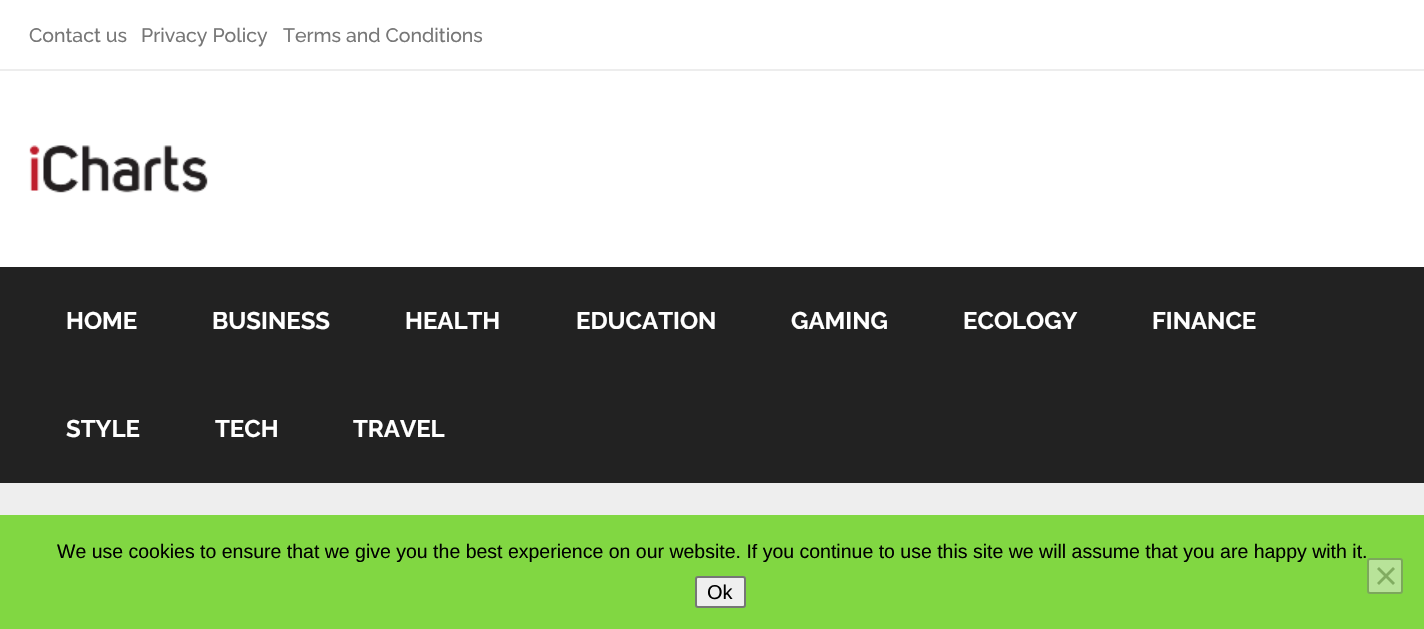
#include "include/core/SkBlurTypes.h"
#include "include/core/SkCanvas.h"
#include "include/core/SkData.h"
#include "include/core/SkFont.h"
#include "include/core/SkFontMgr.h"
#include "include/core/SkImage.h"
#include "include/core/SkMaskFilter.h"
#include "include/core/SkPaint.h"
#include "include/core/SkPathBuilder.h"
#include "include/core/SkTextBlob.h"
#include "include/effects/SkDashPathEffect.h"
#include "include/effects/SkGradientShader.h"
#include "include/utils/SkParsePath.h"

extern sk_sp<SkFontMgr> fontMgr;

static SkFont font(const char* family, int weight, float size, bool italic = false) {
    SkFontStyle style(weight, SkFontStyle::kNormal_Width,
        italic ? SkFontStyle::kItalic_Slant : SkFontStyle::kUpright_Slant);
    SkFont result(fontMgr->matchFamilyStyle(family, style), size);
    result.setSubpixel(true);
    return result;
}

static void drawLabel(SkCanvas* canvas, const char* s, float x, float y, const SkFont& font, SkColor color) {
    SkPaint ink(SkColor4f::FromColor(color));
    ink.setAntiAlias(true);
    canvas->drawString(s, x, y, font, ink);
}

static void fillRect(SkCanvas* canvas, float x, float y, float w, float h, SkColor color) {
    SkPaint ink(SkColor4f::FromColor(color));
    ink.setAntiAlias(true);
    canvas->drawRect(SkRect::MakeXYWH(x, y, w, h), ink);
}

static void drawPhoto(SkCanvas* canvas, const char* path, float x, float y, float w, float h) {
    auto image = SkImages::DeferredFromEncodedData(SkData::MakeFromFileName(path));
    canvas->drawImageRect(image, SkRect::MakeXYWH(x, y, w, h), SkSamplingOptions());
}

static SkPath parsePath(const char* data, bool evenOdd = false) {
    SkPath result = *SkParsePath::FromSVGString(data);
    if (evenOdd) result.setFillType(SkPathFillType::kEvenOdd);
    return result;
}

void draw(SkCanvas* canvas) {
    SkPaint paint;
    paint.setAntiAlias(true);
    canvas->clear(0xFFEEEEEE);
    fillRect(canvas, 0, 0, 1424, 267, 0xFFFFFFFF);
    fillRect(canvas, 0, 69, 1424, 2, 0xFFEDEDED);
    SkFont font1 = font("Raleway", 500, 19.5f);
    drawLabel(canvas, "Contact us", 29, 42, font1, 0xFF777777);
    drawLabel(canvas, "Privacy Policy", 141, 42, font1, 0xFF777777);
    drawLabel(canvas, "Terms and Conditions", 283, 42, font1, 0xFF777777);
    drawPhoto(canvas, "assets/img1.png", 29, 145, 179, 48);
    fillRect(canvas, 0, 267, 1424, 216, 0xFF222222);
    SkFont font2 = font("Raleway", 700, 24);
    drawLabel(canvas, "HOME", 66, 329, font2, 0xFFFFFFFF);
    drawLabel(canvas, "BUSINESS", 212, 329, font2, 0xFFFFFFFF);
    drawLabel(canvas, "HEALTH", 405, 329, font2, 0xFFFFFFFF);
    drawLabel(canvas, "EDUCATION", 576, 329, font2, 0xFFFFFFFF);
    drawLabel(canvas, "GAMING", 791, 329, font2, 0xFFFFFFFF);
    drawLabel(canvas, "ECOLOGY", 963, 329, font2, 0xFFFFFFFF);
    drawLabel(canvas, "FINANCE", 1152, 329, font2, 0xFFFFFFFF);
    drawLabel(canvas, "STYLE", 66, 437, font2, 0xFFFFFFFF);
    drawLabel(canvas, "TECH", 215, 437, font2, 0xFFFFFFFF);
    drawLabel(canvas, "TRAVEL", 353, 437, font2, 0xFFFFFFFF);
    fillRect(canvas, 0, 515, 1424, 114, 0xFF81D742);
    SkFont font3 = font("Liberation Sans", 400, 19.5f);
    drawLabel(canvas, "We use cookies to ensure that we give you the best experience on our website. If you continue to use this site we will assume that you are happy with it.", 57, 558, font3, 0xFF000000);
    paint.setColor(0xFFEFEFEF);
    canvas->drawRoundRect(SkRect::MakeXYWH(696, 577, 49, 30), 2, 2, paint);
    paint.setStroke(true);
    paint.setStrokeWidth(2);
    paint.setColor(0xFF767676);
    canvas->drawRoundRect(SkRect::MakeXYWH(696, 577, 49, 30), 2, 2, paint);
    SkFont font4 = font("Liberation Sans", 400, 20);
    drawLabel(canvas, "Ok", 707, 599, font4, 0xFF000000);
    paint.setStroke(false);
    paint.setColor(0xFFB8E399);
    canvas->drawRoundRect(SkRect::MakeXYWH(1368, 559, 34, 34), 2, 2, paint);
    paint.setStroke(true);
    paint.setColor(0xFF7CA75C);
    canvas->drawRoundRect(SkRect::MakeXYWH(1368, 559, 34, 34), 2, 2, paint);
    paint.setStroke(false);
    paint.setColor(0xFF81AC61);
    canvas->drawPath(parsePath("M1393 567L1395 569L1379 585L1377 583Z"), paint);
    canvas->drawPath(parsePath("M1377 569L1379 567L1395 583L1393 585Z"), paint);
}
